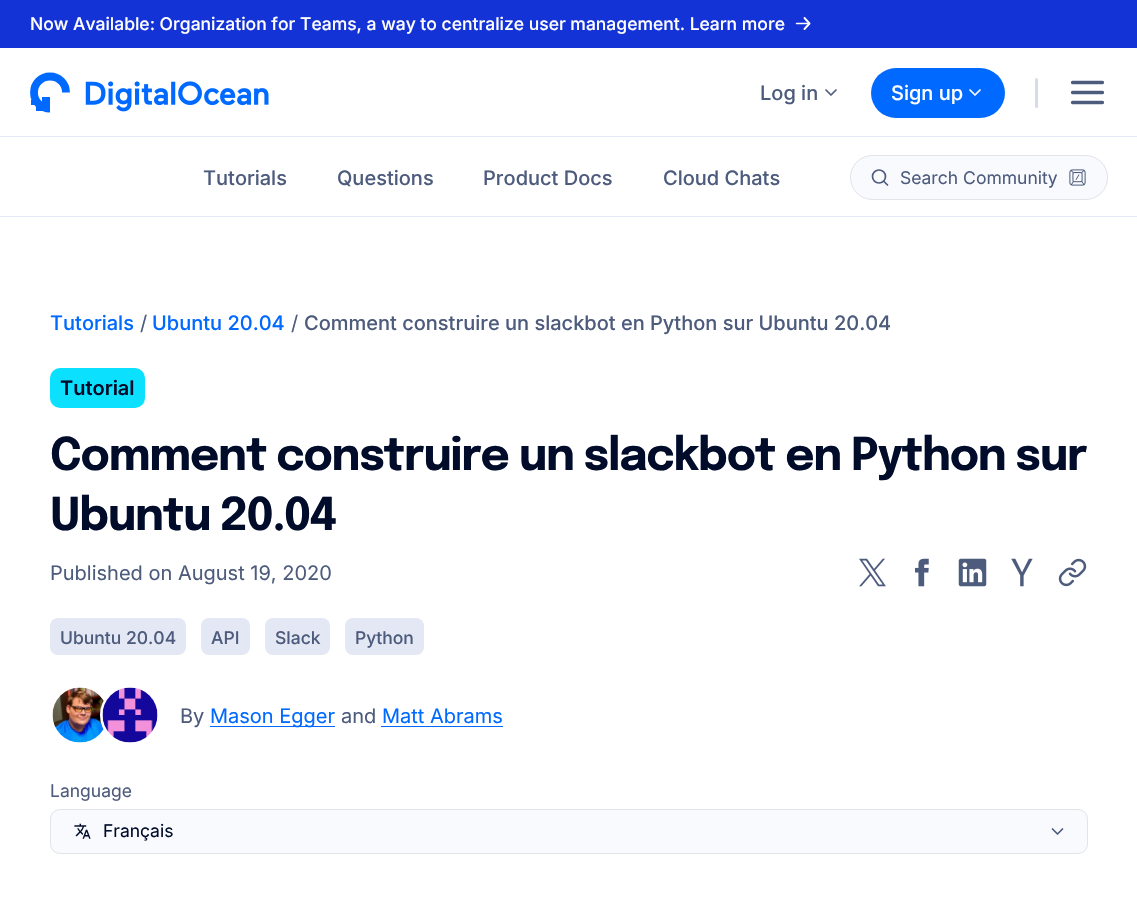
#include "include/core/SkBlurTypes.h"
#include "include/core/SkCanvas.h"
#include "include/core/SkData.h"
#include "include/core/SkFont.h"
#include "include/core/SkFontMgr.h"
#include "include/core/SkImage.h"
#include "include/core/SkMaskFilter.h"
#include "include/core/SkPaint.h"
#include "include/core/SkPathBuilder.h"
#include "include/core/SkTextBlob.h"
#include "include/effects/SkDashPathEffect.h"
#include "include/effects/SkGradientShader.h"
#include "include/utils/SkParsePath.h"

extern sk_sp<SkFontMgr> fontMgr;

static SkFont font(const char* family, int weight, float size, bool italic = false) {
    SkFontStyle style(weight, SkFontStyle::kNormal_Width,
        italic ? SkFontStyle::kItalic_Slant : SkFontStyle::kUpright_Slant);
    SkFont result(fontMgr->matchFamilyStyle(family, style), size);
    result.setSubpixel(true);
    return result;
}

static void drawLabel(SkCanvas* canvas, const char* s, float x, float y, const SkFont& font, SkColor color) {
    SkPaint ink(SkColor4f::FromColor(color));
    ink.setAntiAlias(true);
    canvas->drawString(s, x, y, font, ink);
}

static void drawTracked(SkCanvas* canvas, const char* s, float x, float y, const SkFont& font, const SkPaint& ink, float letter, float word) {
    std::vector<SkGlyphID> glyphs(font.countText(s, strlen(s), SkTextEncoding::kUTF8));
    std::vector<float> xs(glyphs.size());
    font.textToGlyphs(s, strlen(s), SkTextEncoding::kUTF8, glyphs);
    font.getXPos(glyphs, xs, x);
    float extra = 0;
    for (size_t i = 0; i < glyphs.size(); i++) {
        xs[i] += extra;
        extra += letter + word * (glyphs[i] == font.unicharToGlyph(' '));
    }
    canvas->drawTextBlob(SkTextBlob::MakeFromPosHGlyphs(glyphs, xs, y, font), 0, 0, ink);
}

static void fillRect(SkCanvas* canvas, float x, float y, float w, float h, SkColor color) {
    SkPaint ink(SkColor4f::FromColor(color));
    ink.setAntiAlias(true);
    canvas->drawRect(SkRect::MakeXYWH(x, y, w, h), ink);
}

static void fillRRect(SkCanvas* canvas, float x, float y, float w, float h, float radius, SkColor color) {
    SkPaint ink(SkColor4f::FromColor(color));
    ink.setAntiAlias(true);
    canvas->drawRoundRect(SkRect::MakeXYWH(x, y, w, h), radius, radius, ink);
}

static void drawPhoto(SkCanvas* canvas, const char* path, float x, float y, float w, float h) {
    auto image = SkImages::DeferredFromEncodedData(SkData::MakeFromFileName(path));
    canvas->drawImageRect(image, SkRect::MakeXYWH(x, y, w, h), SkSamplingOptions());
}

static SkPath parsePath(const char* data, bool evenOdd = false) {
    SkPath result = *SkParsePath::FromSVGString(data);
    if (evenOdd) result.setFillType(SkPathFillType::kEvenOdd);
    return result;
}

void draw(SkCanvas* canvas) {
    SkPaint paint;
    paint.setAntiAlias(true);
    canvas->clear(0xFFFFFFFF);
    fillRect(canvas, 0, 0, 1137, 48, 0xFF1433D6);
    SkFont font1 = font("Inter", 500, 17.5f);
    drawLabel(canvas, "Now Available: Organization for Teams, a way to centralize user management. Learn more", 30, 30, font1, 0xFFFFFFFF);
    paint.setStroke(true);
    paint.setStrokeWidth(1.9f);
    paint.setStrokeCap(SkPaint::kRound_Cap);
    paint.setStrokeJoin(SkPaint::kRound_Join);
    paint.setColor(0xFFFFFFFF);
    canvas->drawPath(parsePath("M804.5 18L809.5 23.5L804.5 29"), paint);
    paint.setStrokeWidth(1.5f);
    canvas->drawPath(parsePath("M796.5 23.5H808"), paint);
    paint.setStrokeWidth(7.8f);
    paint.setStrokeCap(SkPaint::kButt_Cap);
    paint.setStrokeJoin(SkPaint::kMiter_Join);
    paint.setColor(0xFF0069FF);
    canvas->drawPath(parsePath("M50 76.5C59 76.5 66 83.5 66 92.5M50 108.5C41 108.5 34 101.5 34 92.5C34 83.5 41 76.5 50 76.5"), paint);
    fillRect(canvas, 31, 100, 5, 5, 0xFF0069FF);
    fillRect(canvas, 36, 106, 6, 5, 0xFF0069FF);
    fillRect(canvas, 42, 97, 8, 8, 0xFF0069FF);
    drawPhoto(canvas, "assets/img1.png", 85, 81, 184, 31);
    SkFont font2 = font("Inter", 500, 20);
    drawLabel(canvas, "Log in", 760, 100, font2, 0xFF4D5B7C);
    paint.setStrokeWidth(1.7f);
    paint.setStrokeCap(SkPaint::kRound_Cap);
    paint.setStrokeJoin(SkPaint::kRound_Join);
    paint.setColor(0xFF4D5B7C);
    canvas->drawPath(parsePath("M826 90L831 95L836 90"), paint);
    fillRRect(canvas, 871, 68, 134, 50, 25, 0xFF0069FF);
    drawLabel(canvas, "Sign up", 891, 100, font2, 0xFFFFFFFF);
    paint.setColor(0xFFFFFFFF);
    canvas->drawPath(parsePath("M970 90L975 95L980 90"), paint);
    fillRRect(canvas, 1035, 78, 3, 30, 1.5f, 0xFFD6DCEA);
    paint.setStrokeWidth(3.3f);
    paint.setColor(0xFF4D5B7C);
    canvas->drawPath(parsePath("M1072.5 92.5H1102.5M1072.5 82.5H1102.5M1072.5 102.5H1102.5"), paint);
    fillRect(canvas, 0, 136, 1137, 1, 0xFFE3E8F4);
    drawLabel(canvas, "Tutorials", 203, 185, font2, 0xFF4D5B7C);
    drawLabel(canvas, "Questions", 337, 185, font2, 0xFF4D5B7C);
    drawLabel(canvas, "Product Docs", 483, 185, font2, 0xFF4D5B7C);
    drawLabel(canvas, "Cloud Chats", 663, 185, font2, 0xFF4D5B7C);
    fillRRect(canvas, 850, 155, 258, 45, 22.5f, 0xFFF9FAFE);
    paint.setStrokeWidth(1);
    paint.setStrokeCap(SkPaint::kButt_Cap);
    paint.setStrokeJoin(SkPaint::kMiter_Join);
    paint.setColor(0x1A11192E);
    canvas->drawRoundRect(SkRect::MakeXYWH(850.5f, 155.5f, 257, 44), 22, 22, paint);
    paint.setStrokeWidth(1.7f);
    paint.setColor(0xFF4D5B7C);
    canvas->drawCircle(879, 176.5f, 6.5f, paint);
    paint.setStrokeCap(SkPaint::kRound_Cap);
    paint.setStrokeJoin(SkPaint::kRound_Join);
    canvas->drawPath(parsePath("M887.5 185L884 181.5"), paint);
    SkFont font3 = font("Inter", 400, 17.5f);
    drawLabel(canvas, "Search Community", 900, 184, font3, 0xFF4D5B7C);
    drawPhoto(canvas, "assets/img2.png", 1069, 169, 17, 17);
    fillRect(canvas, 0, 216, 1137, 1, 0xFFE3E8F4);
    drawLabel(canvas, "Tutorials", 50, 330, font2, 0xFF0069FF);
    SkFont font4 = font("Inter", 400, 20);
    drawLabel(canvas, "/", 140, 330, font4, 0xFF4D5B7C);
    drawLabel(canvas, "Ubuntu 20.04", 152, 330, font2, 0xFF0069FF);
    drawLabel(canvas, "/", 291, 330, font4, 0xFF4D5B7C);
    drawLabel(canvas, "Comment construire un slackbot en Python sur Ubuntu 20.04", 304, 330, font2, 0xFF4D5B7C);
    fillRRect(canvas, 50, 368, 95, 40, 10, 0xFF0BE1FF);
    SkFont font5 = font("Inter", 600, 20);
    drawLabel(canvas, "Tutorial", 60, 395, font5, 0xFF000C2A);
    SkFont font6 = font("Epilogue", 700, 45);
    paint.setStroke(false);
    paint.setColor(0xFF000C2A);
    drawTracked(canvas, "Comment construire un slackbot en Python sur", 50, 470, font6, paint, -1.25f, 0);
    drawTracked(canvas, "Ubuntu 20.04", 50, 530, font6, paint, -1.25f, 0);
    drawLabel(canvas, "Published on August 19, 2020", 50, 580, font4, 0xFF4D5B7C);
    drawPhoto(canvas, "assets/img3.png", 859, 558, 27, 29);
    drawPhoto(canvas, "assets/img4.png", 915, 558, 14, 29);
    drawPhoto(canvas, "assets/img5.png", 958, 558, 29, 29);
    drawPhoto(canvas, "assets/img6.png", 1011, 558, 22, 29);
    drawPhoto(canvas, "assets/img7.png", 1058, 558, 29, 29);
    fillRRect(canvas, 50, 618, 136, 37, 8, 0xFFE3E8F4);
    drawLabel(canvas, "Ubuntu 20.04", 60, 644, font1, 0xFF4D5B7C);
    fillRRect(canvas, 201, 618, 49, 37, 8, 0xFFE3E8F4);
    drawLabel(canvas, "API", 211, 644, font1, 0xFF4D5B7C);
    fillRRect(canvas, 265, 618, 65, 37, 8, 0xFFE3E8F4);
    drawLabel(canvas, "Slack", 275, 644, font1, 0xFF4D5B7C);
    fillRRect(canvas, 345, 618, 79, 37, 8, 0xFFE3E8F4);
    drawLabel(canvas, "Python", 355, 644, font1, 0xFF4D5B7C);
    drawPhoto(canvas, "assets/img8.png", 52, 687, 53, 56);
    paint.setStroke(true);
    paint.setStrokeWidth(3);
    paint.setStrokeCap(SkPaint::kButt_Cap);
    paint.setStrokeJoin(SkPaint::kMiter_Join);
    paint.setColor(0xFFFFFFFF);
    canvas->drawCircle(130, 715, 28.5f, paint);
    drawPhoto(canvas, "assets/img9.png", 102, 687, 56, 56);
    drawLabel(canvas, "By", 180, 723, font4, 0xFF4D5B7C);
    fillRect(canvas, 210, 726, 125, 1, 0xFF0069FF);
    drawLabel(canvas, "Mason Egger", 210, 723, font4, 0xFF0069FF);
    drawLabel(canvas, "and", 341, 723, font4, 0xFF4D5B7C);
    drawLabel(canvas, "Matt Abrams", 382, 723, font4, 0xFF0069FF);
    fillRect(canvas, 381, 726, 122, 1, 0xFF0069FF);
    drawLabel(canvas, "Language", 50, 797, font3, 0xFF4D5B7C);
    fillRRect(canvas, 50, 809, 1038, 45, 10, 0xFFF9FAFE);
    paint.setStrokeWidth(1);
    paint.setColor(0x1A11192E);
    canvas->drawRoundRect(SkRect::MakeXYWH(50.5f, 809.5f, 1037, 44), 9.5f, 9.5f, paint);
    drawPhoto(canvas, "assets/img10.png", 74, 823, 17, 16);
    drawLabel(canvas, "Français", 103, 837, font3, 0xFF000C2A);
    paint.setStrokeWidth(1.7f);
    paint.setStrokeCap(SkPaint::kRound_Cap);
    paint.setStrokeJoin(SkPaint::kRound_Join);
    paint.setColor(0xFF4D5B7C);
    canvas->drawPath(parsePath("M1052.5 829L1057.5 834L1062.5 829"), paint);
}
